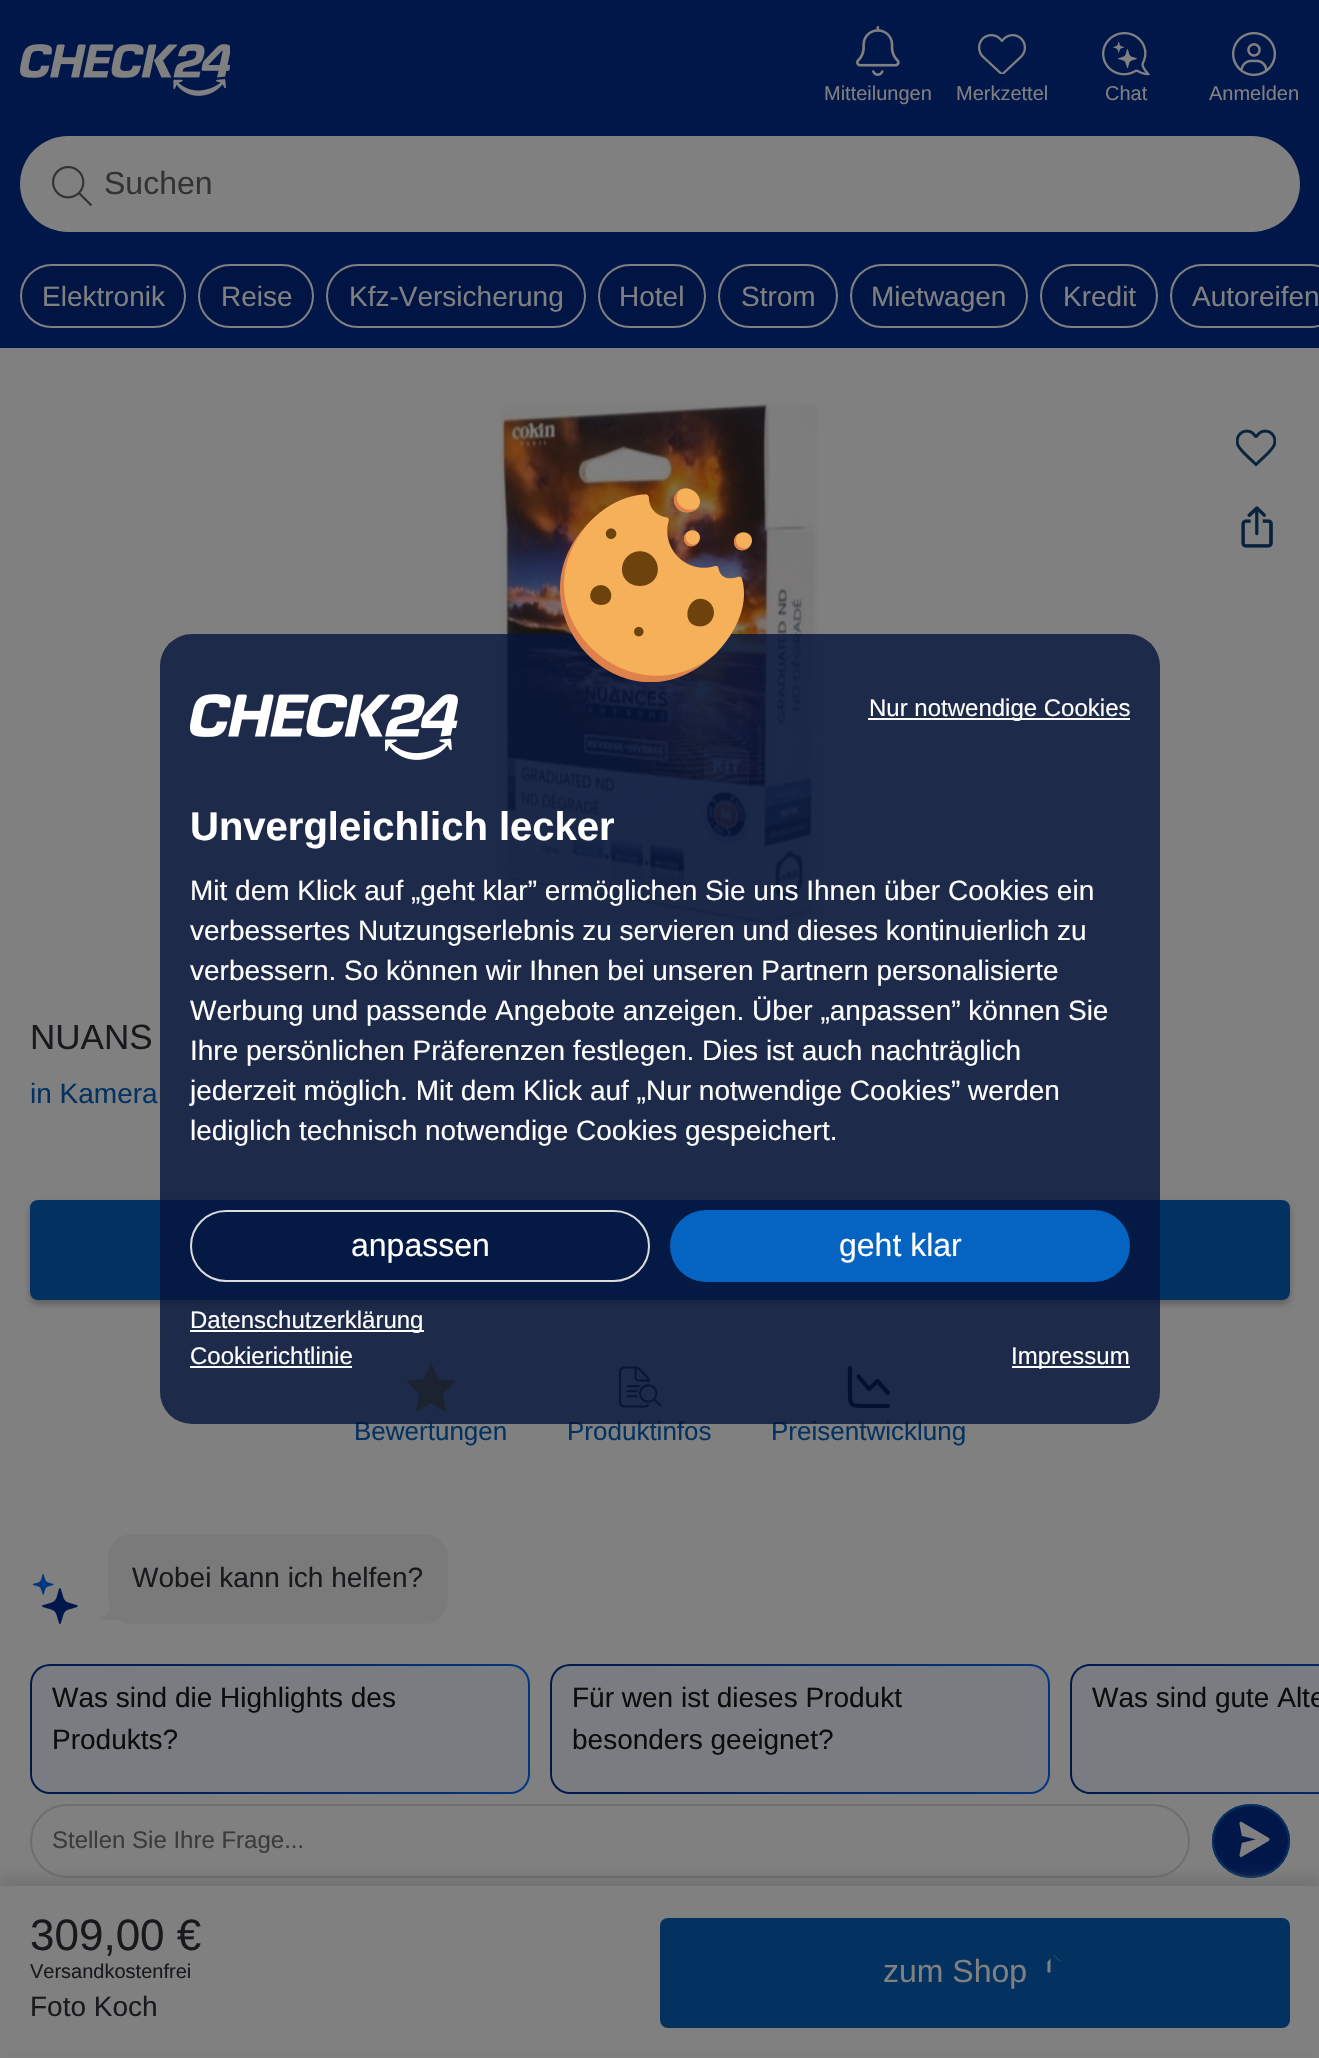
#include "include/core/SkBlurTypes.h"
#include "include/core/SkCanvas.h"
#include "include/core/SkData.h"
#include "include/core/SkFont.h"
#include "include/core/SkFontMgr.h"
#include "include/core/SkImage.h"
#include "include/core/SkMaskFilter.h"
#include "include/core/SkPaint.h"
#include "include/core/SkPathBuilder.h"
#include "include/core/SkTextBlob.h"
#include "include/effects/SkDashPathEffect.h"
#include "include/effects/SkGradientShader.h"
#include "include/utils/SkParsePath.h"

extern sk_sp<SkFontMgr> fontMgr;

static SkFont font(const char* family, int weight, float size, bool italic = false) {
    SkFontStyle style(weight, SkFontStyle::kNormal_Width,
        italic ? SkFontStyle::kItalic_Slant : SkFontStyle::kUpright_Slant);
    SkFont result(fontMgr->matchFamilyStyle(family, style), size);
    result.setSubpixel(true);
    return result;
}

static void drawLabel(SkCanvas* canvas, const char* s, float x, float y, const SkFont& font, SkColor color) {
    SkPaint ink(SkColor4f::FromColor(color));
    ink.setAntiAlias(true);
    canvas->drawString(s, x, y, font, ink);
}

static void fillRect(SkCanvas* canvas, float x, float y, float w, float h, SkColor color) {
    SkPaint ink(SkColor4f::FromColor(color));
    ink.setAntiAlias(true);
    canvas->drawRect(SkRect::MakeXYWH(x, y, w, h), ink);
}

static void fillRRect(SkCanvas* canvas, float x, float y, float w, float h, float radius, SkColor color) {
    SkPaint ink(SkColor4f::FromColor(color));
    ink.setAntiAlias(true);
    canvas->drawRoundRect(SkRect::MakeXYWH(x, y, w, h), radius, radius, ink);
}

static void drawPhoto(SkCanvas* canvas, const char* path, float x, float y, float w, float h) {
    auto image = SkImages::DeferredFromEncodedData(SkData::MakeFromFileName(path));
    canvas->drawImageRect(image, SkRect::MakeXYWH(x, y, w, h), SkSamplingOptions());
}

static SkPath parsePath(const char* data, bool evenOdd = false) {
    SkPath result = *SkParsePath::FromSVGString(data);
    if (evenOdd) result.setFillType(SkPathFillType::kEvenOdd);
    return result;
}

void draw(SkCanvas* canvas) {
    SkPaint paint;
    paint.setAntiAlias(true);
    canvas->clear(0xFF808080);
    fillRect(canvas, 0, 0, 1319, 348, 0xFF01174A);
    drawPhoto(canvas, "assets/img1.png", 20, 44, 210, 52);
    drawPhoto(canvas, "assets/img2.png", 856, 26, 44, 50);
    SkFont font1 = font("Liberation Sans", 400, 20);
    drawLabel(canvas, "Mitteilungen", 824, 100, font1, 0xFF808080);
    drawPhoto(canvas, "assets/img3.png", 978, 34, 48, 40);
    drawLabel(canvas, "Merkzettel", 956, 100, font1, 0xFF808080);
    drawPhoto(canvas, "assets/img4.png", 1102, 32, 48, 44);
    drawLabel(canvas, "Chat", 1105, 100, font1, 0xFF808080);
    drawPhoto(canvas, "assets/img5.png", 1232, 32, 44, 44);
    drawLabel(canvas, "Anmelden", 1209, 100, font1, 0xFF808080);
    fillRRect(canvas, 20, 136, 1280, 96, 48, 0xFF808080);
    drawPhoto(canvas, "assets/img6.png", 52, 166, 40, 40);
    SkFont font2 = font("Liberation Sans", 400, 32);
    drawLabel(canvas, "Suchen", 104, 194, font2, 0xFF333333);
    paint.setColor(0xFF011545);
    canvas->drawRoundRect(SkRect::MakeXYWH(21, 265, 164, 62), 31, 31, paint);
    paint.setStroke(true);
    paint.setStrokeWidth(2);
    paint.setColor(0xFF808080);
    canvas->drawRoundRect(SkRect::MakeXYWH(21, 265, 164, 62), 31, 31, paint);
    SkFont font3 = font("Liberation Sans", 400, 28);
    drawLabel(canvas, "Elektronik", 42, 306, font3, 0xFF808080);
    paint.setStroke(false);
    paint.setColor(0xFF011545);
    canvas->drawRoundRect(SkRect::MakeXYWH(199, 265, 114, 62), 31, 31, paint);
    paint.setStroke(true);
    paint.setColor(0xFF808080);
    canvas->drawRoundRect(SkRect::MakeXYWH(199, 265, 114, 62), 31, 31, paint);
    drawLabel(canvas, "Reise", 221, 306, font3, 0xFF808080);
    paint.setStroke(false);
    paint.setColor(0xFF011545);
    canvas->drawRoundRect(SkRect::MakeXYWH(327, 265, 258, 62), 31, 31, paint);
    paint.setStroke(true);
    paint.setColor(0xFF808080);
    canvas->drawRoundRect(SkRect::MakeXYWH(327, 265, 258, 62), 31, 31, paint);
    drawLabel(canvas, "Kfz-Versicherung", 349, 306, font3, 0xFF808080);
    paint.setStroke(false);
    paint.setColor(0xFF011545);
    canvas->drawRoundRect(SkRect::MakeXYWH(599, 265, 106, 62), 31, 31, paint);
    paint.setStroke(true);
    paint.setColor(0xFF808080);
    canvas->drawRoundRect(SkRect::MakeXYWH(599, 265, 106, 62), 31, 31, paint);
    drawLabel(canvas, "Hotel", 619, 306, font3, 0xFF808080);
    paint.setStroke(false);
    paint.setColor(0xFF011545);
    canvas->drawRoundRect(SkRect::MakeXYWH(719, 265, 118, 62), 31, 31, paint);
    paint.setStroke(true);
    paint.setColor(0xFF808080);
    canvas->drawRoundRect(SkRect::MakeXYWH(719, 265, 118, 62), 31, 31, paint);
    drawLabel(canvas, "Strom", 741, 306, font3, 0xFF808080);
    paint.setStroke(false);
    paint.setColor(0xFF011545);
    canvas->drawRoundRect(SkRect::MakeXYWH(851, 265, 176, 62), 31, 31, paint);
    paint.setStroke(true);
    paint.setColor(0xFF808080);
    canvas->drawRoundRect(SkRect::MakeXYWH(851, 265, 176, 62), 31, 31, paint);
    drawLabel(canvas, "Mietwagen", 871, 306, font3, 0xFF808080);
    paint.setStroke(false);
    paint.setColor(0xFF011545);
    canvas->drawRoundRect(SkRect::MakeXYWH(1041, 265, 116, 62), 31, 31, paint);
    paint.setStroke(true);
    paint.setColor(0xFF808080);
    canvas->drawRoundRect(SkRect::MakeXYWH(1041, 265, 116, 62), 31, 31, paint);
    drawLabel(canvas, "Kredit", 1063, 306, font3, 0xFF808080);
    paint.setStroke(false);
    paint.setColor(0xFF011545);
    canvas->drawRoundRect(SkRect::MakeXYWH(1171, 265, 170, 62), 31, 31, paint);
    paint.setStroke(true);
    paint.setColor(0xFF808080);
    canvas->drawRoundRect(SkRect::MakeXYWH(1171, 265, 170, 62), 31, 31, paint);
    drawLabel(canvas, "Autoreifen", 1192, 306, font3, 0xFF808080);
    drawPhoto(canvas, "assets/img7.png", 1236, 429, 40, 38);
    drawPhoto(canvas, "assets/img8.png", 1241, 506, 32, 42);
    paint.setStroke(false);
    paint.setColor(0x42000000);
    paint.setMaskFilter(SkMaskFilter::MakeBlur(kNormal_SkBlurStyle, 3));
    canvas->drawRoundRect(SkRect::MakeXYWH(30, 1204, 1260, 100), 8, 8, paint);
    paint.setMaskFilter(nullptr);
    fillRRect(canvas, 30, 1200, 1260, 100, 8, 0xFF033261);
    drawPhoto(canvas, "assets/img9.png", 500, 404, 318, 520);
    SkFont font4 = font("Liberation Sans", 400, 35);
    drawLabel(canvas, "NUANS", 30, 1049, font4, 0xFF17191C);
    drawLabel(canvas, "in Kamera", 30, 1103, font3, 0xFF033261);
    paint.setStroke(true);
    paint.setColor(0xFF6E6E6E);
    canvas->drawRoundRect(SkRect::MakeXYWH(31, 1805, 1158, 72), 36, 36, paint);
    paint.setStroke(false);
    paint.setColor(0xFF01174A);
    canvas->drawOval(SkRect::MakeXYWH(1212, 1804, 78, 74), paint);
    paint.setStroke(true);
    paint.setColor(0xFF033261);
    canvas->drawPath(parsePath("M1251 1805C1272 1805 1289 1821 1289 1841C1289 1861 1272 1877 1251 1877C1230 1877 1213 1861 1213 1841C1213 1821 1230 1805 1251 1805Z"), paint);
    paint.setStroke(false);
    paint.setColor(0x595B5B5B);
    paint.setMaskFilter(SkMaskFilter::MakeBlur(kNormal_SkBlurStyle, 5));
    canvas->drawRect(SkRect::MakeXYWH(0, 1876, 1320, 172), paint);
    paint.setMaskFilter(nullptr);
    fillRect(canvas, 0, 1886, 1319, 166, 0xFF808080);
    SkFont font5 = font("Liberation Sans", 400, 44);
    drawLabel(canvas, "309,00 €", 30, 1950, font5, 0xFF17191C);
    drawLabel(canvas, "Versandkostenfrei", 30, 1978, font1, 0xFF17191C);
    drawLabel(canvas, "Foto Koch", 30, 2016, font3, 0xFF17191C);
    fillRRect(canvas, 660, 1918, 630, 110, 8, 0xFF033261);
    drawLabel(canvas, "zum Shop", 883, 1982, font2, 0xFF808080);
    drawPhoto(canvas, "assets/img10.png", 1047, 1955, 13, 18);
    paint.setColor(0xFF7B5C00);
    canvas->drawPath(parsePath("M431 1362L424 1379L406 1381L419 1394L416 1412L431 1403L446 1412L443 1394L456 1381L438 1379Z"), paint);
    SkFont font6 = font("Liberation Sans", 400, 26);
    drawLabel(canvas, "Bewertungen", 354, 1440, font6, 0xFF033261);
    drawPhoto(canvas, "assets/img11.png", 618, 1366, 44, 42);
    drawLabel(canvas, "Produktinfos", 567, 1440, font6, 0xFF033261);
    paint.setStroke(true);
    paint.setStrokeWidth(4.2f);
    paint.setStrokeCap(SkPaint::kRound_Cap);
    paint.setStrokeJoin(SkPaint::kRound_Join);
    paint.setColor(0xFF000000);
    canvas->drawPath(parsePath("M888 1406H865C850 1406 850 1406 850 1391V1368M858.5 1376.5L869 1389L877.5 1381L888 1393"), paint);
    drawLabel(canvas, "Preisentwicklung", 771, 1440, font6, 0xFF033261);
    drawPhoto(canvas, "assets/img12.png", 32, 1574, 46, 50);
    fillRRect(canvas, 108, 1534, 340, 90, 24, 0xFF7A7A7A);
    drawLabel(canvas, "Wobei kann ich helfen?", 132, 1587, font3, 0xFF17191C);
    paint.setStroke(false);
    paint.setColor(0xFF7A7A7A);
    canvas->drawPath(parsePath("M120 1620H100L110 1610Z"), paint);
    {
        const SkColor colors[] = {0xFF01174A, 0xFF003680};
        const float stops[] = {0, 1};
        const SkPoint ends[] = {{30, 1729}, {530, 1729}};
        paint.setShader(SkGradientShader::MakeLinear(ends, colors, stops, 2, SkTileMode::kClamp));
        paint.setAlpha(255);
    }
    canvas->drawRoundRect(SkRect::MakeXYWH(30, 1664, 500, 130), 20, 20, paint);
    fillRRect(canvas, 32, 1666, 496, 126, 18, 0xFF797C80);
    drawLabel(canvas, "Was sind die Highlights des", 52, 1707, font3, 0xFF0C0C0C);
    drawLabel(canvas, "Produkts?", 52, 1749, font3, 0xFF0C0C0C);
    {
        const SkColor colors[] = {0xFF01174A, 0xFF003680};
        const float stops[] = {0, 1};
        const SkPoint ends[] = {{550, 1729}, {1050, 1729}};
        paint.setShader(SkGradientShader::MakeLinear(ends, colors, stops, 2, SkTileMode::kClamp));
        paint.setAlpha(255);
    }
    canvas->drawRoundRect(SkRect::MakeXYWH(550, 1664, 500, 130), 20, 20, paint);
    fillRRect(canvas, 552, 1666, 496, 126, 18, 0xFF797C80);
    drawLabel(canvas, "Für wen ist dieses Produkt", 572, 1707, font3, 0xFF0C0C0C);
    drawLabel(canvas, "besonders geeignet?", 572, 1749, font3, 0xFF0C0C0C);
    {
        const SkColor colors[] = {0xFF01174A, 0xFF003680};
        const float stops[] = {0, 1};
        const SkPoint ends[] = {{1070, 1729}, {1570, 1729}};
        paint.setShader(SkGradientShader::MakeLinear(ends, colors, stops, 2, SkTileMode::kClamp));
        paint.setAlpha(255);
    }
    canvas->drawPath(parsePath("M1090 1664H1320V1794H1090C1079 1794 1070 1785 1070 1774V1684C1070 1673 1079 1664 1090 1664Z"), paint);
    paint.setShader(nullptr);
    paint.setColor(0xFF797C80);
    canvas->drawPath(parsePath("M1090 1666H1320V1792H1090C1080 1792 1072 1784 1072 1774V1684C1072 1674 1080 1666 1090 1666Z"), paint);
    drawLabel(canvas, "Was sind gute Alte", 1092, 1707, font3, 0xFF0C0C0C);
    SkFont font7 = font("Liberation Sans", 400, 24);
    drawLabel(canvas, "Stellen Sie Ihre Frage...", 52, 1848, font7, 0xFF3B3B3B);
    drawPhoto(canvas, "assets/img13.png", 1239, 1821, 31, 37);
    fillRRect(canvas, 160, 634, 1000, 790, 32, 0xCC04143C);
    drawPhoto(canvas, "assets/img14.png", 560, 488, 192, 194);
    drawPhoto(canvas, "assets/img15.png", 190, 694, 268, 66);
    fillRect(canvas, 868, 718, 262, 2, 0xFFFFFFFF);
    drawLabel(canvas, "Nur notwendige Cookies", 869, 716, font7, 0xFFFFFFFF);
    SkFont font8 = font("Liberation Sans", 700, 40);
    drawLabel(canvas, "Unvergleichlich lecker", 190, 840, font8, 0xFFFFFFFF);
    drawLabel(canvas, "Mit dem Klick auf „geht klar” ermöglichen Sie uns Ihnen über Cookies ein", 190, 900, font3, 0xFFFFFFFF);
    drawLabel(canvas, "verbessertes Nutzungserlebnis zu servieren und dieses kontinuierlich zu", 190, 940, font3, 0xFFFFFFFF);
    drawLabel(canvas, "verbessern. So können wir Ihnen bei unseren Partnern personalisierte", 190, 980, font3, 0xFFFFFFFF);
    drawLabel(canvas, "Werbung und passende Angebote anzeigen. Über „anpassen” können Sie", 190, 1020, font3, 0xFFFFFFFF);
    drawLabel(canvas, "Ihre persönlichen Präferenzen festlegen. Dies ist auch nachträglich", 190, 1060, font3, 0xFFFFFFFF);
    drawLabel(canvas, "jederzeit möglich. Mit dem Klick auf „Nur notwendige Cookies” werden", 190, 1100, font3, 0xFFFFFFFF);
    drawLabel(canvas, "lediglich technisch notwendige Cookies gespeichert.", 190, 1140, font3, 0xFFFFFFFF);
    paint.setStroke(true);
    paint.setStrokeWidth(2);
    paint.setStrokeCap(SkPaint::kButt_Cap);
    paint.setStrokeJoin(SkPaint::kMiter_Join);
    paint.setColor(0xFFDCDCDC);
    canvas->drawRoundRect(SkRect::MakeXYWH(191, 1211, 458, 70), 35, 35, paint);
    drawLabel(canvas, "anpassen", 351, 1256, font2, 0xFFFFFFFF);
    fillRRect(canvas, 670, 1210, 460, 72, 36, 0xFF0563C1);
    drawLabel(canvas, "geht klar", 839, 1256, font2, 0xFFFFFFFF);
    fillRect(canvas, 190, 1330, 234, 2, 0xFFFFFFFF);
    drawLabel(canvas, "Datenschutzerklärung", 190, 1328, font7, 0xFFFFFFFF);
    drawLabel(canvas, "Cookierichtlinie", 190, 1364, font7, 0xFFFFFFFF);
    fillRect(canvas, 190, 1366, 162, 2, 0xFFFFFFFF);
    fillRect(canvas, 1012, 1366, 118, 2, 0xFFFFFFFF);
    drawLabel(canvas, "Impressum", 1011, 1364, font7, 0xFFFFFFFF);
}
